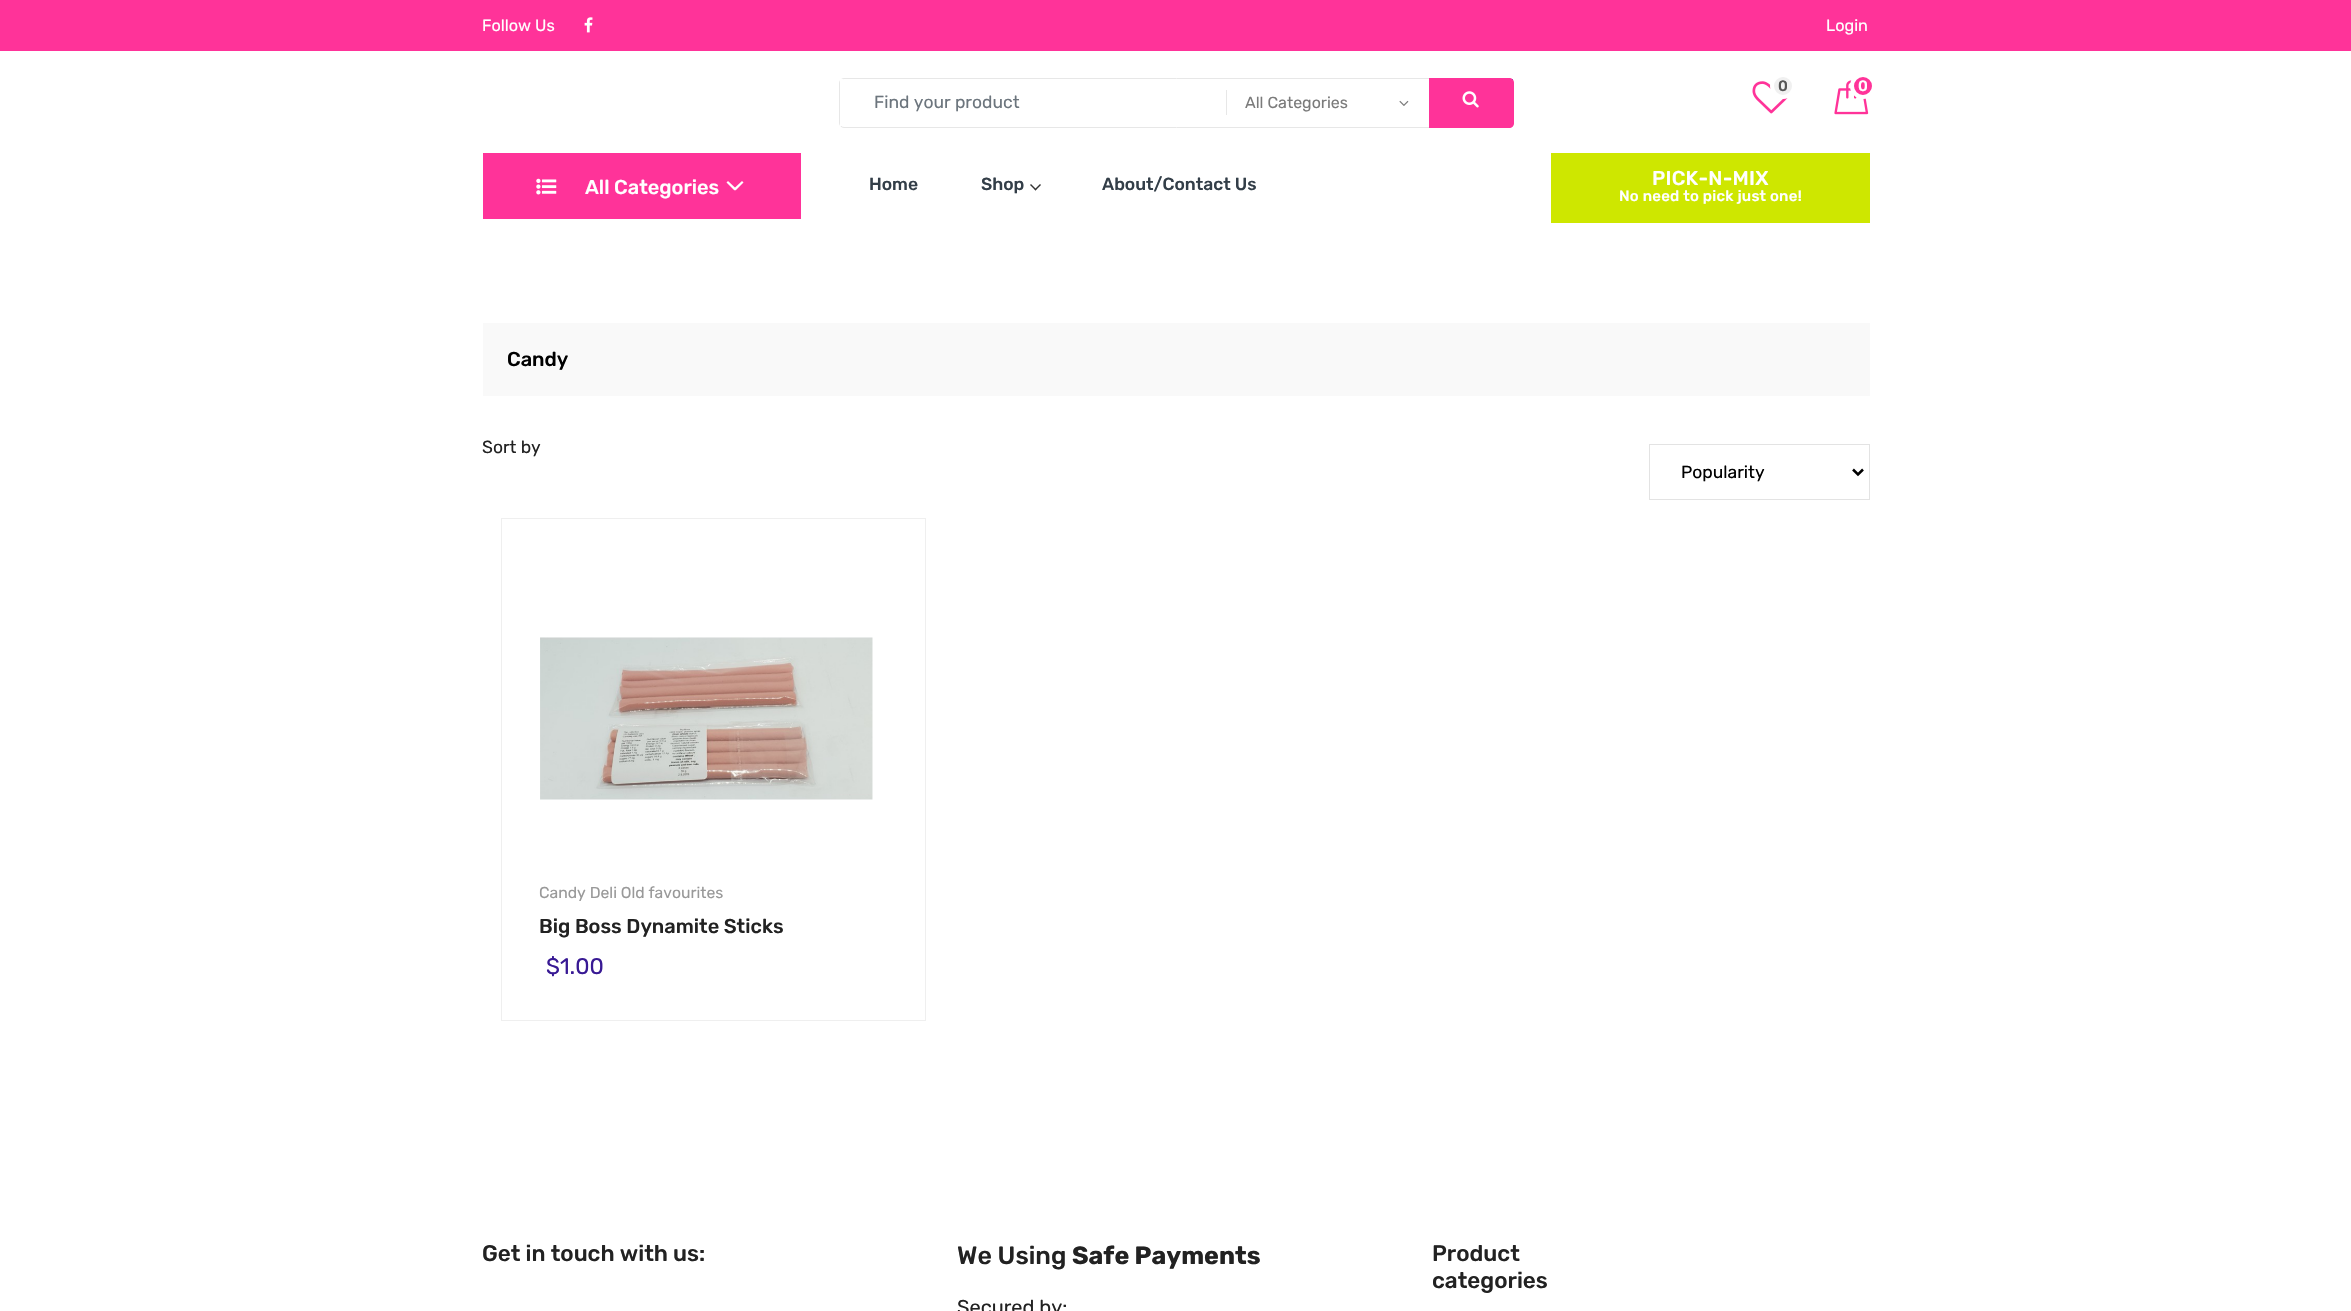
#include "include/core/SkBlurTypes.h"
#include "include/core/SkCanvas.h"
#include "include/core/SkData.h"
#include "include/core/SkFont.h"
#include "include/core/SkFontMgr.h"
#include "include/core/SkImage.h"
#include "include/core/SkMaskFilter.h"
#include "include/core/SkPaint.h"
#include "include/core/SkPathBuilder.h"
#include "include/core/SkTextBlob.h"
#include "include/effects/SkDashPathEffect.h"
#include "include/effects/SkGradientShader.h"
#include "include/utils/SkParsePath.h"

extern sk_sp<SkFontMgr> fontMgr;

static SkFont font(const char* family, int weight, float size, bool italic = false) {
    SkFontStyle style(weight, SkFontStyle::kNormal_Width,
        italic ? SkFontStyle::kItalic_Slant : SkFontStyle::kUpright_Slant);
    SkFont result(fontMgr->matchFamilyStyle(family, style), size);
    result.setSubpixel(true);
    return result;
}

static void drawLabel(SkCanvas* canvas, const char* s, float x, float y, const SkFont& font, SkColor color) {
    SkPaint ink(SkColor4f::FromColor(color));
    ink.setAntiAlias(true);
    canvas->drawString(s, x, y, font, ink);
}

static void drawTracked(SkCanvas* canvas, const char* s, float x, float y, const SkFont& font, const SkPaint& ink, float letter, float word) {
    std::vector<SkGlyphID> glyphs(font.countText(s, strlen(s), SkTextEncoding::kUTF8));
    std::vector<float> xs(glyphs.size());
    font.textToGlyphs(s, strlen(s), SkTextEncoding::kUTF8, glyphs);
    font.getXPos(glyphs, xs, x);
    float extra = 0;
    for (size_t i = 0; i < glyphs.size(); i++) {
        xs[i] += extra;
        extra += letter + word * (glyphs[i] == font.unicharToGlyph(' '));
    }
    canvas->drawTextBlob(SkTextBlob::MakeFromPosHGlyphs(glyphs, xs, y, font), 0, 0, ink);
}

static void fillRect(SkCanvas* canvas, float x, float y, float w, float h, SkColor color) {
    SkPaint ink(SkColor4f::FromColor(color));
    ink.setAntiAlias(true);
    canvas->drawRect(SkRect::MakeXYWH(x, y, w, h), ink);
}

static void drawPhoto(SkCanvas* canvas, const char* path, float x, float y, float w, float h) {
    auto image = SkImages::DeferredFromEncodedData(SkData::MakeFromFileName(path));
    canvas->drawImageRect(image, SkRect::MakeXYWH(x, y, w, h), SkSamplingOptions());
}

static SkPath parsePath(const char* data, bool evenOdd = false) {
    SkPath result = *SkParsePath::FromSVGString(data);
    if (evenOdd) result.setFillType(SkPathFillType::kEvenOdd);
    return result;
}

void draw(SkCanvas* canvas) {
    SkPaint paint;
    paint.setAntiAlias(true);
    canvas->clear(0xFFFFFFFF);
    fillRect(canvas, 0, 0, 2351, 51, 0xFFFF3399);
    SkFont font1 = font("Rubik", 400, 16.25f);
    drawLabel(canvas, "Follow Us", 482, 31, font1, 0xFFFFFFFF);
    drawPhoto(canvas, "assets/img1.png", 584, 17, 9, 16);
    drawLabel(canvas, "Login", 1826, 31, font1, 0xFFFFFFFF);
    drawPhoto(canvas, "assets/img2.png", 1752, 81, 36, 33);
    paint.setColor(0xFFF0F0F0);
    canvas->drawCircle(1783, 86, 11, paint);
    paint.setStroke(true);
    paint.setStrokeWidth(4);
    paint.setColor(0xFFFFFFFF);
    canvas->drawCircle(1783, 86, 11, paint);
    SkFont font2 = font("Rubik", 500, 15);
    drawLabel(canvas, "0", 1778, 91, font2, 0xFF565656);
    drawPhoto(canvas, "assets/img3.png", 1834, 80, 35, 35);
    paint.setStroke(false);
    paint.setColor(0xFFFF3399);
    canvas->drawCircle(1863, 86, 11, paint);
    paint.setStroke(true);
    paint.setColor(0xFFFFFFFF);
    canvas->drawCircle(1863, 86, 11, paint);
    drawLabel(canvas, "0", 1858, 91, font2, 0xFFFFFFFF);
    paint.setStrokeWidth(1);
    paint.setColor(0xFFE7E7E7);
    canvas->drawRoundRect(SkRect::MakeXYWH(839.5f, 78.5f, 674, 49), 4.5f, 4.5f, paint);
    fillRect(canvas, 840, 79, 3, 47, 0xFFFFFFFF);
    SkFont font3 = font("Rubik", 400, 17.5f);
    drawLabel(canvas, "Find your product", 874, 108, font3, 0xFF6C757D);
    fillRect(canvas, 1226, 90, 1, 25, 0xFFE7E7E7);
    SkFont font4 = font("Rubik", 400, 16);
    drawLabel(canvas, "All Categories", 1245, 108, font4, 0xFF7B7B7B);
    drawPhoto(canvas, "assets/img4.png", 1399, 100, 10, 6);
    fillRect(canvas, 1512, 79, 1, 1, 0xFF2154CF);
    paint.setStroke(false);
    paint.setColor(0xFFFF3399);
    canvas->drawPath(parsePath("M1429 78H1509C1512 78 1514 80 1514 83V123C1514 126 1512 128 1509 128H1429Z"), paint);
    drawPhoto(canvas, "assets/img5.png", 1462, 91, 17, 17);
    canvas->drawPath(parsePath("M1514 112.5V123L1513.5 125C1513.5 121 1513.5 116.5 1514 112.5Z"), paint);
    fillRect(canvas, 483, 153, 318, 66, 0xFFFF3399);
    drawPhoto(canvas, "assets/img6.png", 536, 178, 21, 17);
    SkFont font5 = font("Rubik", 500, 20);
    drawLabel(canvas, "All Categories", 585, 194, font5, 0xFFFFFFFF);
    paint.setColor(0xFFFFFFFF);
    canvas->drawPath(parsePath("M728 181L736 188.5L734.5 190.5L726.5 182.5Z"), paint);
    canvas->drawPath(parsePath("M734 188.5L742 181L743.5 182.5L735.5 190.5Z"), paint);
    SkFont font6 = font("Rubik", 500, 17.5f);
    drawLabel(canvas, "Home", 869, 190, font6, 0xFF333E48);
    drawLabel(canvas, "Shop", 981, 190, font6, 0xFF333E48);
    paint.setColor(0xFF333333);
    canvas->drawPath(parsePath("M1040 184L1041 185L1035.5 190.5L1034.5 189.5Z"), paint);
    canvas->drawPath(parsePath("M1031 184L1036.5 189.5L1035.5 190.5L1030 185Z"), paint);
    drawLabel(canvas, "About/Contact Us", 1102, 190, font6, 0xFF333E48);
    fillRect(canvas, 1551, 153, 319, 70, 0xFFCEE700);
    paint.setColor(0xFFFFFFFF);
    drawTracked(canvas, "PICK-N-MIX", 1652, 185, font5, paint, 0.25f, 0);
    drawTracked(canvas, "No need to pick just one!", 1619, 201, font2, paint, 0.25f, 0);
    fillRect(canvas, 483, 323, 1387, 73, 0xFFF9F9F9);
    drawLabel(canvas, "Candy", 507, 366, font5, 0xFF000000);
    drawLabel(canvas, "Sort by", 482, 453, font3, 0xFF222222);
    paint.setStroke(true);
    paint.setColor(0xFFE3E3E3);
    canvas->drawRect(SkRect::MakeXYWH(1649.5f, 444.5f, 220, 55), paint);
    paint.setStrokeWidth(2.5f);
    paint.setColor(0xFF000000);
    canvas->drawPath(parsePath("M1853 469.5L1858 474.5L1863 469.5"), paint);
    drawLabel(canvas, "Popularity", 1681, 478, font3, 0xFF000000);
    paint.setStrokeWidth(1);
    paint.setColor(0xFFEFEFEF);
    canvas->drawRect(SkRect::MakeXYWH(501.5f, 518.5f, 424, 502), paint);
    drawPhoto(canvas, "assets/img7.png", 540, 637, 333, 163);
    SkFont font7 = font("Rubik", 400, 15.75f);
    drawLabel(canvas, "Candy Deli Old favourites", 539, 898, font7, 0xFF999999);
    drawLabel(canvas, "Big Boss Dynamite Sticks", 539, 933, font5, 0xFF222222);
    SkFont font8 = font("Rubik", 400, 22.5f);
    drawLabel(canvas, "$1.00", 546, 974, font8, 0xFF381994);
    SkFont font9 = font("Rubik", 500, 22.5f);
    drawLabel(canvas, "Get in touch with us:", 482, 1261, font9, 0xFF222222);
    SkFont font10 = font("Rubik", 500, 25);
    drawLabel(canvas, "We Using", 957, 1264, font10, 0xFF222222);
    SkFont font11 = font("Rubik", 700, 25);
    drawLabel(canvas, "Safe Payments", 1072, 1264, font11, 0xFF222222);
    SkFont font12 = font("Rubik", 400, 20);
    drawLabel(canvas, "Secured by:", 957, 1314, font12, 0xFF222222);
    drawLabel(canvas, "Product", 1432, 1261, font9, 0xFF222222);
    drawLabel(canvas, "categories", 1432, 1288, font9, 0xFF222222);
}
